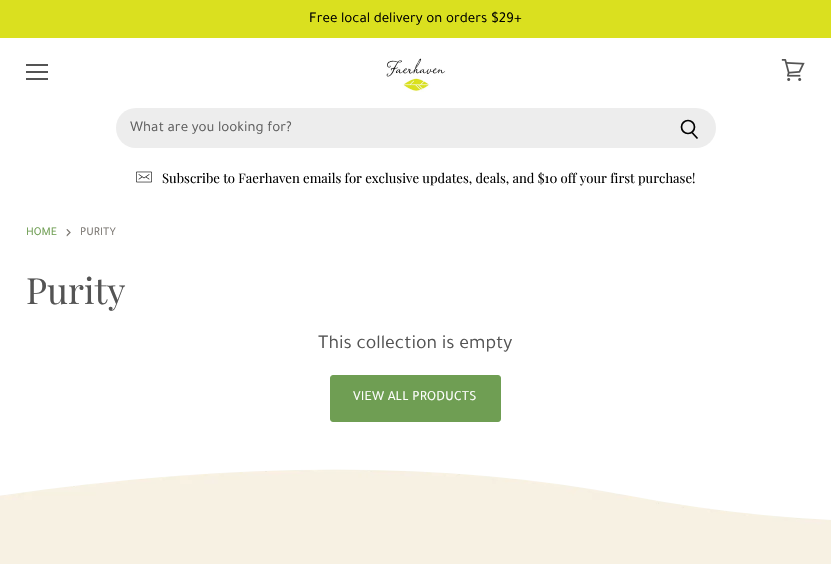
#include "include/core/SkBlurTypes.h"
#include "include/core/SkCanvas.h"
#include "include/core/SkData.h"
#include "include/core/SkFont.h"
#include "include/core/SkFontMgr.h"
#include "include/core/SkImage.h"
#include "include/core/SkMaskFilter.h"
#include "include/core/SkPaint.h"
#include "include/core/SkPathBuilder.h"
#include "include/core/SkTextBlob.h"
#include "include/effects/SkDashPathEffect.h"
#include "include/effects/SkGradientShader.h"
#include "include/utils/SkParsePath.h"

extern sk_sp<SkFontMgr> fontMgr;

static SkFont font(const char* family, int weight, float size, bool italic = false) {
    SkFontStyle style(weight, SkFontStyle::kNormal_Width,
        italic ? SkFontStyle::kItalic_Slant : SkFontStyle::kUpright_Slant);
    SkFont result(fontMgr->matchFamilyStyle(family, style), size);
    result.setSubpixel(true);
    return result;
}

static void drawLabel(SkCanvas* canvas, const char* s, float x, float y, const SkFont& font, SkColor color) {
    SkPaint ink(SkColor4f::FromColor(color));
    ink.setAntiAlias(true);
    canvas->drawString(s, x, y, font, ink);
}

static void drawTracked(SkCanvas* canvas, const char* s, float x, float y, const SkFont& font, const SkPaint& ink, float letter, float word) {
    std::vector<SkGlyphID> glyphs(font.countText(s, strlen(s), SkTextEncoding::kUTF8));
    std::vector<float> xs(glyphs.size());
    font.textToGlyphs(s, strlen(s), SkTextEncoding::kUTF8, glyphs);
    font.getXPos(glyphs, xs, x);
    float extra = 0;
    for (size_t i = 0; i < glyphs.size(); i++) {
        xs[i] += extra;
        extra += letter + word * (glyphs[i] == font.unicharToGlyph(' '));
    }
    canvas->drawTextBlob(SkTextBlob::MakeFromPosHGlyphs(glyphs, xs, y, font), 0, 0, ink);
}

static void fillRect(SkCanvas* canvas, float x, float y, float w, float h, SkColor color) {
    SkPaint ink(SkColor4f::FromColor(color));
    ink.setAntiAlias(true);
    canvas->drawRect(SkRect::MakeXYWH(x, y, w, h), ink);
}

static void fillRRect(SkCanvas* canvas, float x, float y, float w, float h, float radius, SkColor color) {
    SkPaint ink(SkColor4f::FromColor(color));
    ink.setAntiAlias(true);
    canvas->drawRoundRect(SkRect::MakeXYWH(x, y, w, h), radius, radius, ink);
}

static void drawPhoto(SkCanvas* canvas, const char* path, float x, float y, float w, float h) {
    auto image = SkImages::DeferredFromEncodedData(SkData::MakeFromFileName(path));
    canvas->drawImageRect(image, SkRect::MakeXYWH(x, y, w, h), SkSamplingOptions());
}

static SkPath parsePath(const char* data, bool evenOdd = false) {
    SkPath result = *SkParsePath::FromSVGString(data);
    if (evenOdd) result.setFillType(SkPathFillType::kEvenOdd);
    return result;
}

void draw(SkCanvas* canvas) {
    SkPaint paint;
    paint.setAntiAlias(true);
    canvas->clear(0xFFFFFFFF);
    fillRect(canvas, 0, 0, 831, 38, 0xFFDAE01F);
    SkFont font1 = font("Tajawal", 400, 15);
    drawLabel(canvas, "Free local delivery on orders $29+", 309, 22, font1, 0xFF000000);
    fillRect(canvas, 26, 64, 22, 2, 0xFF545454);
    fillRect(canvas, 26, 71, 22, 2, 0xFF545454);
    fillRect(canvas, 26, 78, 22, 2, 0xFF545454);
    drawPhoto(canvas, "assets/img1.png", 781, 59, 24, 22);
    drawPhoto(canvas, "assets/img2.png", 386, 58, 60, 34);
    fillRRect(canvas, 116, 108, 600, 40, 20, 0xFFEDEDED);
    drawLabel(canvas, "What are you looking for?", 130, 131, font1, 0xFF5F5F5F);
    paint.setStroke(true);
    paint.setStrokeWidth(1.7f);
    paint.setColor(0xFF000000);
    canvas->drawPath(parsePath("M697.5 138.5L692 132.5"), paint);
    canvas->drawCircle(688, 127, 6.5f, paint);
    drawPhoto(canvas, "assets/img3.png", 136, 171, 16, 12);
    SkFont font2 = font("Playfair Display", 400, 13.1f);
    drawLabel(canvas, "Subscribe to Faerhaven emails for exclusive updates, deals, and $10 off your first purchase!", 162, 183, font2, 0xFF000000);
    SkFont font3 = font("Tajawal", 400, 12);
    drawLabel(canvas, "HOME", 26, 235, font3, 0xFF6F9E53);
    canvas->save();
    canvas->clipPath(parsePath("M66.5 237V229H71.5V237Z"), true);
    paint.setStrokeWidth(1.2f);
    paint.setColor(0xFF7C7873);
    canvas->drawPath(parsePath("M66.5 236L70 232.5L66.5 229"), paint);
    canvas->restore();
    drawLabel(canvas, "PURITY", 80, 235, font3, 0xFF7C7873);
    SkFont font4 = font("Playfair Display", 400, 36);
    drawLabel(canvas, "Purity", 26, 304, font4, 0xFF545454);
    SkFont font5 = font("Tajawal", 400, 19.75f);
    drawLabel(canvas, "This collection is empty", 318, 348, font5, 0xFF545454);
    paint.setStroke(false);
    paint.setColor(0xFF6F9E53);
    canvas->drawRoundRect(SkRect::MakeXYWH(330.5f, 375.5f, 170, 46), 2.5f, 2.5f, paint);
    paint.setStroke(true);
    paint.setStrokeWidth(1);
    canvas->drawRoundRect(SkRect::MakeXYWH(330.5f, 375.5f, 170, 46), 2.5f, 2.5f, paint);
    SkFont font6 = font("Tajawal", 400, 14);
    paint.setStroke(false);
    paint.setColor(0xFFFFFFFF);
    drawTracked(canvas, "VIEW ALL PRODUCTS", 353, 400, font6, paint, 0.1f, 0);
    drawPhoto(canvas, "assets/img4.png", 0, 469, 831, 75);
    fillRect(canvas, 0, 544, 831, 20, 0xFFF7F1E3);
}
